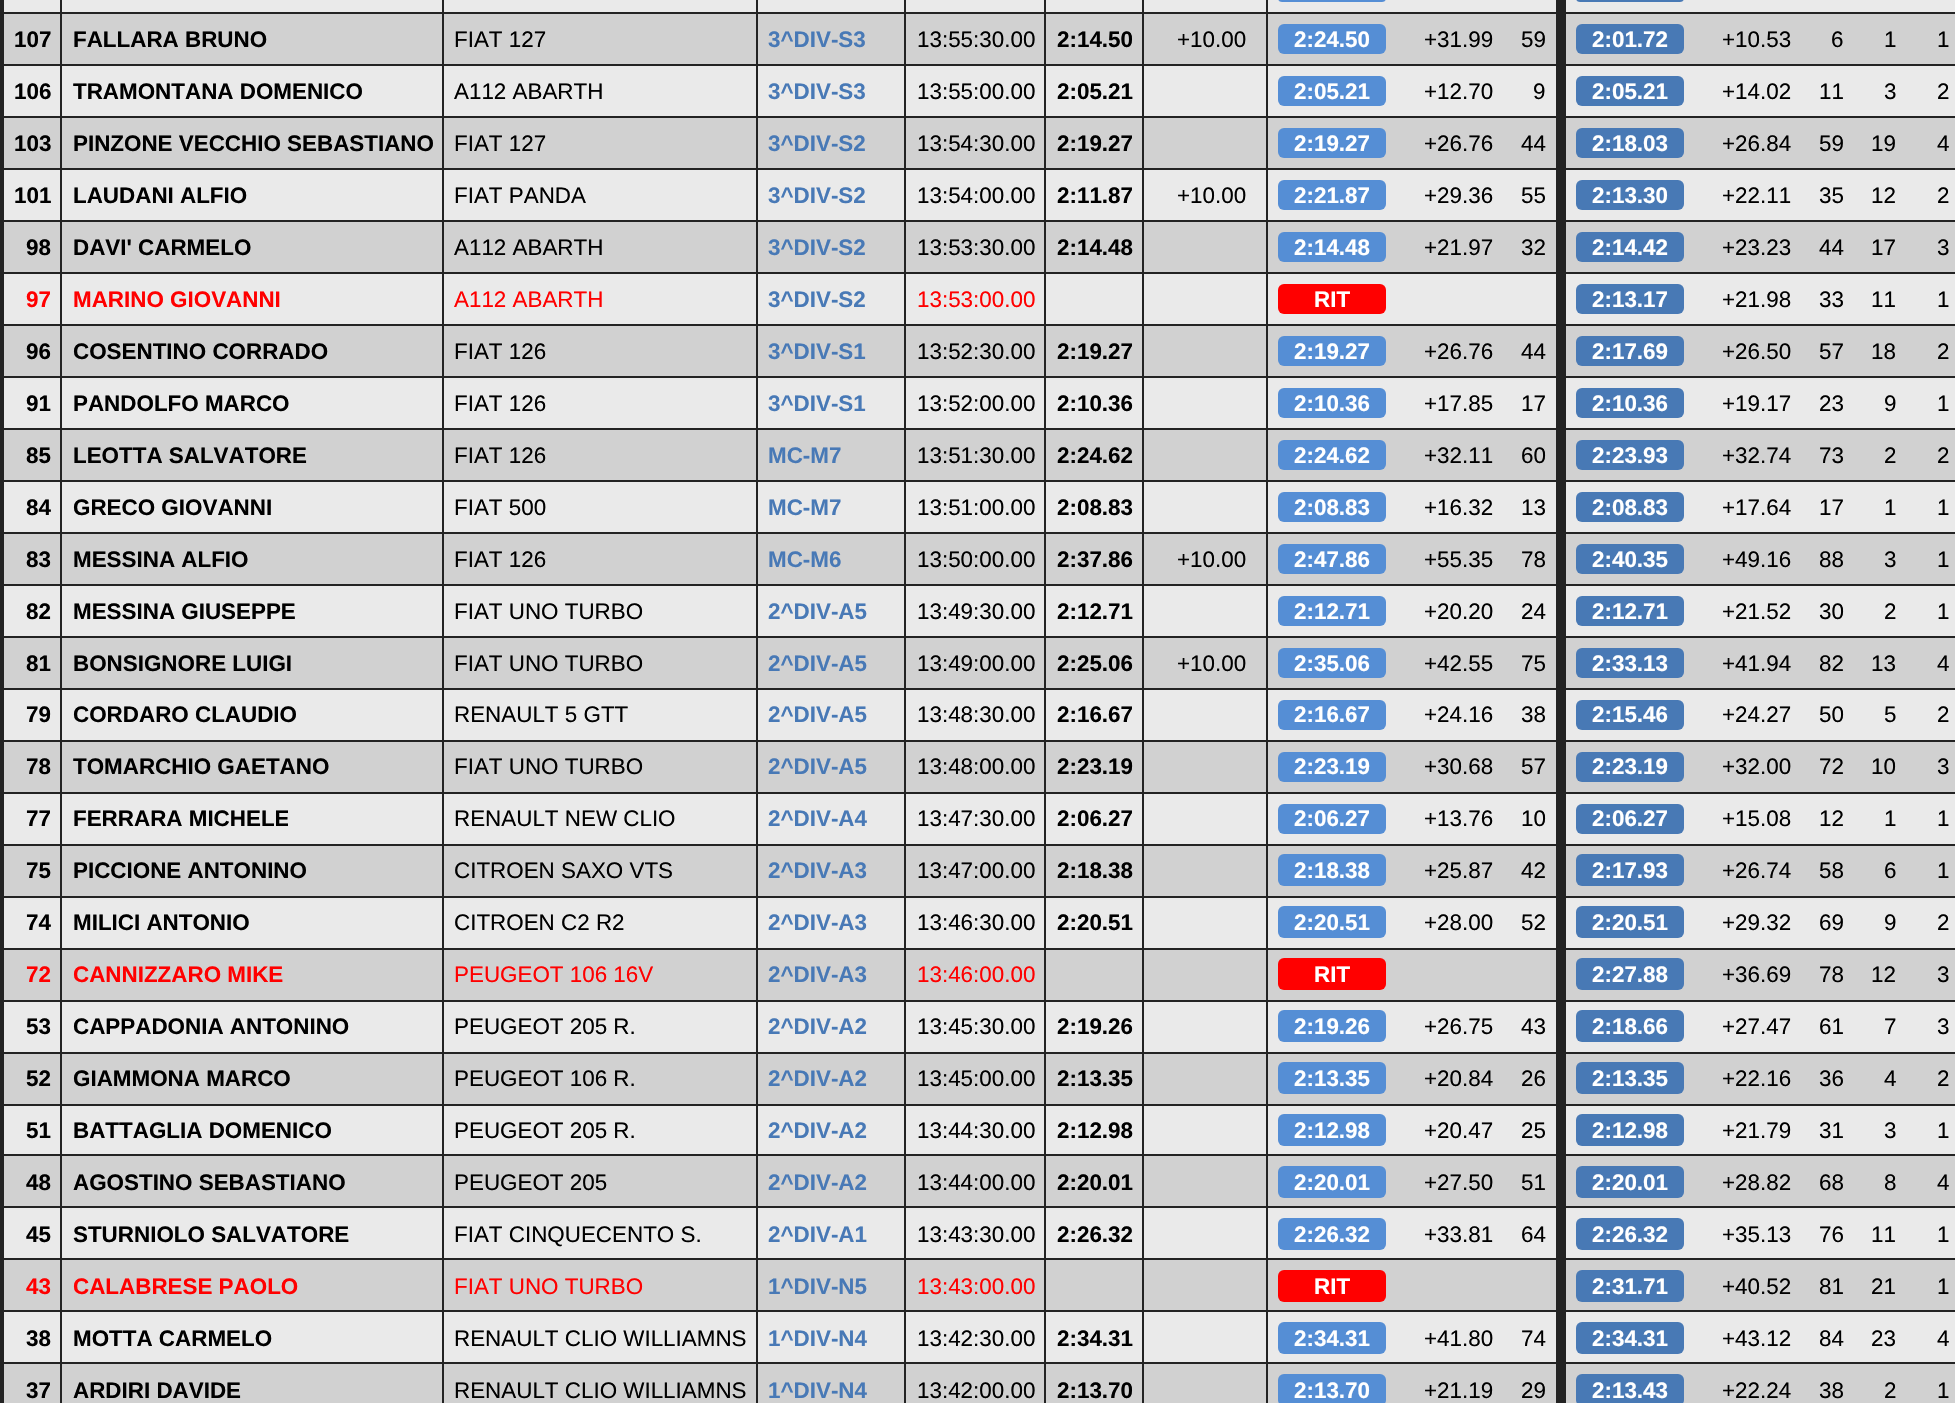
#include "include/core/SkBlurTypes.h"
#include "include/core/SkCanvas.h"
#include "include/core/SkData.h"
#include "include/core/SkFont.h"
#include "include/core/SkFontMgr.h"
#include "include/core/SkImage.h"
#include "include/core/SkMaskFilter.h"
#include "include/core/SkPaint.h"
#include "include/core/SkPathBuilder.h"
#include "include/core/SkTextBlob.h"
#include "include/effects/SkDashPathEffect.h"
#include "include/effects/SkGradientShader.h"
#include "include/utils/SkParsePath.h"

extern sk_sp<SkFontMgr> fontMgr;

static SkFont font(const char* family, int weight, float size, bool italic = false) {
    SkFontStyle style(weight, SkFontStyle::kNormal_Width,
        italic ? SkFontStyle::kItalic_Slant : SkFontStyle::kUpright_Slant);
    SkFont result(fontMgr->matchFamilyStyle(family, style), size);
    result.setSubpixel(true);
    return result;
}

static void drawLabel(SkCanvas* canvas, const char* s, float x, float y, const SkFont& font, SkColor color) {
    SkPaint ink(SkColor4f::FromColor(color));
    ink.setAntiAlias(true);
    canvas->drawString(s, x, y, font, ink);
}

static void fillRect(SkCanvas* canvas, float x, float y, float w, float h, SkColor color) {
    SkPaint ink(SkColor4f::FromColor(color));
    ink.setAntiAlias(true);
    canvas->drawRect(SkRect::MakeXYWH(x, y, w, h), ink);
}

static void fillRRect(SkCanvas* canvas, float x, float y, float w, float h, float radius, SkColor color) {
    SkPaint ink(SkColor4f::FromColor(color));
    ink.setAntiAlias(true);
    canvas->drawRoundRect(SkRect::MakeXYWH(x, y, w, h), radius, radius, ink);
}

void draw(SkCanvas* canvas) {
    SkPaint paint;
    paint.setAntiAlias(true);
    canvas->clear(0xFF232323);
    fillRect(canvas, 4, 0, 1951, 12, 0xFFEAEAEA);
    fillRRect(canvas, 1278, -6, 108, 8, 6, 0xFF558ED5);
    fillRRect(canvas, 1576, -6, 108, 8, 6, 0xFF4879B5);
    fillRect(canvas, 4, 14, 1951, 50, 0xFFD1D1D1);
    SkFont font1 = font("Liberation Sans", 700, 22.4f);
    drawLabel(canvas, "107", 14, 47, font1, 0xFF000000);
    drawLabel(canvas, "FALLARA BRUNO", 73, 47, font1, 0xFF000000);
    SkFont font2 = font("Liberation Sans", 400, 22.4f);
    drawLabel(canvas, "FIAT 127", 454, 47, font2, 0xFF000000);
    drawLabel(canvas, "3^DIV-S3", 768, 47, font1, 0xFF4879B6);
    drawLabel(canvas, "13:55:30.00", 917, 47, font2, 0xFF000000);
    drawLabel(canvas, "2:14.50", 1057, 47, font1, 0xFF000000);
    drawLabel(canvas, "+10.00", 1177, 47, font2, 0xFF000000);
    fillRRect(canvas, 1278, 24, 108, 30, 6, 0xFF558ED5);
    drawLabel(canvas, "2:24.50", 1294, 47, font1, 0xFFFFFFFF);
    drawLabel(canvas, "+31.99", 1424, 47, font2, 0xFF000000);
    drawLabel(canvas, "59", 1521, 47, font2, 0xFF000000);
    fillRRect(canvas, 1576, 24, 108, 30, 6, 0xFF4879B5);
    drawLabel(canvas, "2:01.72", 1592, 47, font1, 0xFFFFFFFF);
    drawLabel(canvas, "+10.53", 1722, 47, font2, 0xFF000000);
    drawLabel(canvas, "6", 1831, 47, font2, 0xFF000000);
    drawLabel(canvas, "1", 1884, 47, font2, 0xFF000000);
    drawLabel(canvas, "1", 1937, 47, font2, 0xFF000000);
    fillRect(canvas, 4, 66, 1951, 50, 0xFFEAEAEA);
    drawLabel(canvas, "106", 14, 99, font1, 0xFF000000);
    drawLabel(canvas, "TRAMONTANA DOMENICO", 73, 99, font1, 0xFF000000);
    drawLabel(canvas, "A112 ABARTH", 454, 99, font2, 0xFF000000);
    drawLabel(canvas, "3^DIV-S3", 768, 99, font1, 0xFF4879B6);
    drawLabel(canvas, "13:55:00.00", 917, 99, font2, 0xFF000000);
    drawLabel(canvas, "2:05.21", 1057, 99, font1, 0xFF000000);
    fillRRect(canvas, 1278, 76, 108, 30, 6, 0xFF558ED5);
    drawLabel(canvas, "2:05.21", 1294, 99, font1, 0xFFFFFFFF);
    drawLabel(canvas, "+12.70", 1424, 99, font2, 0xFF000000);
    drawLabel(canvas, "9", 1533, 99, font2, 0xFF000000);
    fillRRect(canvas, 1576, 76, 108, 30, 6, 0xFF4879B5);
    drawLabel(canvas, "2:05.21", 1592, 99, font1, 0xFFFFFFFF);
    drawLabel(canvas, "+14.02", 1722, 99, font2, 0xFF000000);
    drawLabel(canvas, "11", 1819, 99, font2, 0xFF000000);
    drawLabel(canvas, "3", 1884, 99, font2, 0xFF000000);
    drawLabel(canvas, "2", 1937, 99, font2, 0xFF000000);
    fillRect(canvas, 4, 118, 1951, 50, 0xFFD1D1D1);
    drawLabel(canvas, "103", 14, 151, font1, 0xFF000000);
    drawLabel(canvas, "PINZONE VECCHIO SEBASTIANO", 73, 151, font1, 0xFF000000);
    drawLabel(canvas, "FIAT 127", 454, 151, font2, 0xFF000000);
    drawLabel(canvas, "3^DIV-S2", 768, 151, font1, 0xFF4879B6);
    drawLabel(canvas, "13:54:30.00", 917, 151, font2, 0xFF000000);
    drawLabel(canvas, "2:19.27", 1057, 151, font1, 0xFF000000);
    fillRRect(canvas, 1278, 128, 108, 30, 6, 0xFF558ED5);
    drawLabel(canvas, "2:19.27", 1294, 151, font1, 0xFFFFFFFF);
    drawLabel(canvas, "+26.76", 1424, 151, font2, 0xFF000000);
    drawLabel(canvas, "44", 1521, 151, font2, 0xFF000000);
    fillRRect(canvas, 1576, 128, 108, 30, 6, 0xFF4879B5);
    drawLabel(canvas, "2:18.03", 1592, 151, font1, 0xFFFFFFFF);
    drawLabel(canvas, "+26.84", 1722, 151, font2, 0xFF000000);
    drawLabel(canvas, "59", 1819, 151, font2, 0xFF000000);
    drawLabel(canvas, "19", 1871, 151, font2, 0xFF000000);
    drawLabel(canvas, "4", 1937, 151, font2, 0xFF000000);
    fillRect(canvas, 4, 170, 1951, 50, 0xFFEAEAEA);
    drawLabel(canvas, "101", 14, 203, font1, 0xFF000000);
    drawLabel(canvas, "LAUDANI ALFIO", 73, 203, font1, 0xFF000000);
    drawLabel(canvas, "FIAT PANDA", 454, 203, font2, 0xFF000000);
    drawLabel(canvas, "3^DIV-S2", 768, 203, font1, 0xFF4879B6);
    drawLabel(canvas, "13:54:00.00", 917, 203, font2, 0xFF000000);
    drawLabel(canvas, "2:11.87", 1057, 203, font1, 0xFF000000);
    drawLabel(canvas, "+10.00", 1177, 203, font2, 0xFF000000);
    fillRRect(canvas, 1278, 180, 108, 30, 6, 0xFF558ED5);
    drawLabel(canvas, "2:21.87", 1294, 203, font1, 0xFFFFFFFF);
    drawLabel(canvas, "+29.36", 1424, 203, font2, 0xFF000000);
    drawLabel(canvas, "55", 1521, 203, font2, 0xFF000000);
    fillRRect(canvas, 1576, 180, 108, 30, 6, 0xFF4879B5);
    drawLabel(canvas, "2:13.30", 1592, 203, font1, 0xFFFFFFFF);
    drawLabel(canvas, "+22.11", 1722, 203, font2, 0xFF000000);
    drawLabel(canvas, "35", 1819, 203, font2, 0xFF000000);
    drawLabel(canvas, "12", 1871, 203, font2, 0xFF000000);
    drawLabel(canvas, "2", 1937, 203, font2, 0xFF000000);
    fillRect(canvas, 4, 222, 1951, 50, 0xFFD1D1D1);
    drawLabel(canvas, "98", 26, 255, font1, 0xFF000000);
    drawLabel(canvas, "DAVI' CARMELO", 73, 255, font1, 0xFF000000);
    drawLabel(canvas, "A112 ABARTH", 454, 255, font2, 0xFF000000);
    drawLabel(canvas, "3^DIV-S2", 768, 255, font1, 0xFF4879B6);
    drawLabel(canvas, "13:53:30.00", 917, 255, font2, 0xFF000000);
    drawLabel(canvas, "2:14.48", 1057, 255, font1, 0xFF000000);
    fillRRect(canvas, 1278, 232, 108, 30, 6, 0xFF558ED5);
    drawLabel(canvas, "2:14.48", 1294, 255, font1, 0xFFFFFFFF);
    drawLabel(canvas, "+21.97", 1424, 255, font2, 0xFF000000);
    drawLabel(canvas, "32", 1521, 255, font2, 0xFF000000);
    fillRRect(canvas, 1576, 232, 108, 30, 6, 0xFF4879B5);
    drawLabel(canvas, "2:14.42", 1592, 255, font1, 0xFFFFFFFF);
    drawLabel(canvas, "+23.23", 1722, 255, font2, 0xFF000000);
    drawLabel(canvas, "44", 1819, 255, font2, 0xFF000000);
    drawLabel(canvas, "17", 1871, 255, font2, 0xFF000000);
    drawLabel(canvas, "3", 1937, 255, font2, 0xFF000000);
    fillRect(canvas, 4, 274, 1951, 50, 0xFFEAEAEA);
    drawLabel(canvas, "97", 26, 307, font1, 0xFFFF0000);
    drawLabel(canvas, "MARINO GIOVANNI", 73, 307, font1, 0xFFFF0000);
    drawLabel(canvas, "A112 ABARTH", 454, 307, font2, 0xFFFF0000);
    drawLabel(canvas, "3^DIV-S2", 768, 307, font1, 0xFF4879B6);
    drawLabel(canvas, "13:53:00.00", 917, 307, font2, 0xFFFF0000);
    fillRRect(canvas, 1278, 284, 108, 30, 6, 0xFFFF0000);
    drawLabel(canvas, "RIT", 1314, 307, font1, 0xFFFFFFFF);
    fillRRect(canvas, 1576, 284, 108, 30, 6, 0xFF4879B5);
    drawLabel(canvas, "2:13.17", 1592, 307, font1, 0xFFFFFFFF);
    drawLabel(canvas, "+21.98", 1722, 307, font2, 0xFF000000);
    drawLabel(canvas, "33", 1819, 307, font2, 0xFF000000);
    drawLabel(canvas, "11", 1871, 307, font2, 0xFF000000);
    drawLabel(canvas, "1", 1937, 307, font2, 0xFF000000);
    fillRect(canvas, 4, 326, 1951, 50, 0xFFD1D1D1);
    drawLabel(canvas, "96", 26, 359, font1, 0xFF000000);
    drawLabel(canvas, "COSENTINO CORRADO", 73, 359, font1, 0xFF000000);
    drawLabel(canvas, "FIAT 126", 454, 359, font2, 0xFF000000);
    drawLabel(canvas, "3^DIV-S1", 768, 359, font1, 0xFF4879B6);
    drawLabel(canvas, "13:52:30.00", 917, 359, font2, 0xFF000000);
    drawLabel(canvas, "2:19.27", 1057, 359, font1, 0xFF000000);
    fillRRect(canvas, 1278, 336, 108, 30, 6, 0xFF558ED5);
    drawLabel(canvas, "2:19.27", 1294, 359, font1, 0xFFFFFFFF);
    drawLabel(canvas, "+26.76", 1424, 359, font2, 0xFF000000);
    drawLabel(canvas, "44", 1521, 359, font2, 0xFF000000);
    fillRRect(canvas, 1576, 336, 108, 30, 6, 0xFF4879B5);
    drawLabel(canvas, "2:17.69", 1592, 359, font1, 0xFFFFFFFF);
    drawLabel(canvas, "+26.50", 1722, 359, font2, 0xFF000000);
    drawLabel(canvas, "57", 1819, 359, font2, 0xFF000000);
    drawLabel(canvas, "18", 1871, 359, font2, 0xFF000000);
    drawLabel(canvas, "2", 1937, 359, font2, 0xFF000000);
    fillRect(canvas, 4, 378, 1951, 50, 0xFFEAEAEA);
    drawLabel(canvas, "91", 26, 411, font1, 0xFF000000);
    drawLabel(canvas, "PANDOLFO MARCO", 73, 411, font1, 0xFF000000);
    drawLabel(canvas, "FIAT 126", 454, 411, font2, 0xFF000000);
    drawLabel(canvas, "3^DIV-S1", 768, 411, font1, 0xFF4879B6);
    drawLabel(canvas, "13:52:00.00", 917, 411, font2, 0xFF000000);
    drawLabel(canvas, "2:10.36", 1057, 411, font1, 0xFF000000);
    fillRRect(canvas, 1278, 388, 108, 30, 6, 0xFF558ED5);
    drawLabel(canvas, "2:10.36", 1294, 411, font1, 0xFFFFFFFF);
    drawLabel(canvas, "+17.85", 1424, 411, font2, 0xFF000000);
    drawLabel(canvas, "17", 1521, 411, font2, 0xFF000000);
    fillRRect(canvas, 1576, 388, 108, 30, 6, 0xFF4879B5);
    drawLabel(canvas, "2:10.36", 1592, 411, font1, 0xFFFFFFFF);
    drawLabel(canvas, "+19.17", 1722, 411, font2, 0xFF000000);
    drawLabel(canvas, "23", 1819, 411, font2, 0xFF000000);
    drawLabel(canvas, "9", 1884, 411, font2, 0xFF000000);
    drawLabel(canvas, "1", 1937, 411, font2, 0xFF000000);
    fillRect(canvas, 4, 430, 1951, 50, 0xFFD1D1D1);
    drawLabel(canvas, "85", 26, 463, font1, 0xFF000000);
    drawLabel(canvas, "LEOTTA SALVATORE", 73, 463, font1, 0xFF000000);
    drawLabel(canvas, "FIAT 126", 454, 463, font2, 0xFF000000);
    drawLabel(canvas, "MC-M7", 768, 463, font1, 0xFF4879B6);
    drawLabel(canvas, "13:51:30.00", 917, 463, font2, 0xFF000000);
    drawLabel(canvas, "2:24.62", 1057, 463, font1, 0xFF000000);
    fillRRect(canvas, 1278, 440, 108, 30, 6, 0xFF558ED5);
    drawLabel(canvas, "2:24.62", 1294, 463, font1, 0xFFFFFFFF);
    drawLabel(canvas, "+32.11", 1424, 463, font2, 0xFF000000);
    drawLabel(canvas, "60", 1521, 463, font2, 0xFF000000);
    fillRRect(canvas, 1576, 440, 108, 30, 6, 0xFF4879B5);
    drawLabel(canvas, "2:23.93", 1592, 463, font1, 0xFFFFFFFF);
    drawLabel(canvas, "+32.74", 1722, 463, font2, 0xFF000000);
    drawLabel(canvas, "73", 1819, 463, font2, 0xFF000000);
    drawLabel(canvas, "2", 1884, 463, font2, 0xFF000000);
    drawLabel(canvas, "2", 1937, 463, font2, 0xFF000000);
    fillRect(canvas, 4, 482, 1951, 50, 0xFFEAEAEA);
    drawLabel(canvas, "84", 26, 515, font1, 0xFF000000);
    drawLabel(canvas, "GRECO GIOVANNI", 73, 515, font1, 0xFF000000);
    drawLabel(canvas, "FIAT 500", 454, 515, font2, 0xFF000000);
    drawLabel(canvas, "MC-M7", 768, 515, font1, 0xFF4879B6);
    drawLabel(canvas, "13:51:00.00", 917, 515, font2, 0xFF000000);
    drawLabel(canvas, "2:08.83", 1057, 515, font1, 0xFF000000);
    fillRRect(canvas, 1278, 492, 108, 30, 6, 0xFF558ED5);
    drawLabel(canvas, "2:08.83", 1294, 515, font1, 0xFFFFFFFF);
    drawLabel(canvas, "+16.32", 1424, 515, font2, 0xFF000000);
    drawLabel(canvas, "13", 1521, 515, font2, 0xFF000000);
    fillRRect(canvas, 1576, 492, 108, 30, 6, 0xFF4879B5);
    drawLabel(canvas, "2:08.83", 1592, 515, font1, 0xFFFFFFFF);
    drawLabel(canvas, "+17.64", 1722, 515, font2, 0xFF000000);
    drawLabel(canvas, "17", 1819, 515, font2, 0xFF000000);
    drawLabel(canvas, "1", 1884, 515, font2, 0xFF000000);
    drawLabel(canvas, "1", 1937, 515, font2, 0xFF000000);
    fillRect(canvas, 4, 534, 1951, 50, 0xFFD1D1D1);
    drawLabel(canvas, "83", 26, 567, font1, 0xFF000000);
    drawLabel(canvas, "MESSINA ALFIO", 73, 567, font1, 0xFF000000);
    drawLabel(canvas, "FIAT 126", 454, 567, font2, 0xFF000000);
    drawLabel(canvas, "MC-M6", 768, 567, font1, 0xFF4879B6);
    drawLabel(canvas, "13:50:00.00", 917, 567, font2, 0xFF000000);
    drawLabel(canvas, "2:37.86", 1057, 567, font1, 0xFF000000);
    drawLabel(canvas, "+10.00", 1177, 567, font2, 0xFF000000);
    fillRRect(canvas, 1278, 544, 108, 30, 6, 0xFF558ED5);
    drawLabel(canvas, "2:47.86", 1294, 567, font1, 0xFFFFFFFF);
    drawLabel(canvas, "+55.35", 1424, 567, font2, 0xFF000000);
    drawLabel(canvas, "78", 1521, 567, font2, 0xFF000000);
    fillRRect(canvas, 1576, 544, 108, 30, 6, 0xFF4879B5);
    drawLabel(canvas, "2:40.35", 1592, 567, font1, 0xFFFFFFFF);
    drawLabel(canvas, "+49.16", 1722, 567, font2, 0xFF000000);
    drawLabel(canvas, "88", 1819, 567, font2, 0xFF000000);
    drawLabel(canvas, "3", 1884, 567, font2, 0xFF000000);
    drawLabel(canvas, "1", 1937, 567, font2, 0xFF000000);
    fillRect(canvas, 4, 586, 1951, 50, 0xFFEAEAEA);
    drawLabel(canvas, "82", 26, 619, font1, 0xFF000000);
    drawLabel(canvas, "MESSINA GIUSEPPE", 73, 619, font1, 0xFF000000);
    drawLabel(canvas, "FIAT UNO TURBO", 454, 619, font2, 0xFF000000);
    drawLabel(canvas, "2^DIV-A5", 768, 619, font1, 0xFF4879B6);
    drawLabel(canvas, "13:49:30.00", 917, 619, font2, 0xFF000000);
    drawLabel(canvas, "2:12.71", 1057, 619, font1, 0xFF000000);
    fillRRect(canvas, 1278, 596, 108, 30, 6, 0xFF558ED5);
    drawLabel(canvas, "2:12.71", 1294, 619, font1, 0xFFFFFFFF);
    drawLabel(canvas, "+20.20", 1424, 619, font2, 0xFF000000);
    drawLabel(canvas, "24", 1521, 619, font2, 0xFF000000);
    fillRRect(canvas, 1576, 596, 108, 30, 6, 0xFF4879B5);
    drawLabel(canvas, "2:12.71", 1592, 619, font1, 0xFFFFFFFF);
    drawLabel(canvas, "+21.52", 1722, 619, font2, 0xFF000000);
    drawLabel(canvas, "30", 1819, 619, font2, 0xFF000000);
    drawLabel(canvas, "2", 1884, 619, font2, 0xFF000000);
    drawLabel(canvas, "1", 1937, 619, font2, 0xFF000000);
    fillRect(canvas, 4, 638, 1951, 50, 0xFFD1D1D1);
    drawLabel(canvas, "81", 26, 671, font1, 0xFF000000);
    drawLabel(canvas, "BONSIGNORE LUIGI", 73, 671, font1, 0xFF000000);
    drawLabel(canvas, "FIAT UNO TURBO", 454, 671, font2, 0xFF000000);
    drawLabel(canvas, "2^DIV-A5", 768, 671, font1, 0xFF4879B6);
    drawLabel(canvas, "13:49:00.00", 917, 671, font2, 0xFF000000);
    drawLabel(canvas, "2:25.06", 1057, 671, font1, 0xFF000000);
    drawLabel(canvas, "+10.00", 1177, 671, font2, 0xFF000000);
    fillRRect(canvas, 1278, 648, 108, 30, 6, 0xFF558ED5);
    drawLabel(canvas, "2:35.06", 1294, 671, font1, 0xFFFFFFFF);
    drawLabel(canvas, "+42.55", 1424, 671, font2, 0xFF000000);
    drawLabel(canvas, "75", 1521, 671, font2, 0xFF000000);
    fillRRect(canvas, 1576, 648, 108, 30, 6, 0xFF4879B5);
    drawLabel(canvas, "2:33.13", 1592, 671, font1, 0xFFFFFFFF);
    drawLabel(canvas, "+41.94", 1722, 671, font2, 0xFF000000);
    drawLabel(canvas, "82", 1819, 671, font2, 0xFF000000);
    drawLabel(canvas, "13", 1871, 671, font2, 0xFF000000);
    drawLabel(canvas, "4", 1937, 671, font2, 0xFF000000);
    fillRect(canvas, 4, 690, 1951, 50, 0xFFEAEAEA);
    drawLabel(canvas, "79", 26, 722, font1, 0xFF000000);
    drawLabel(canvas, "CORDARO CLAUDIO", 73, 722, font1, 0xFF000000);
    drawLabel(canvas, "RENAULT 5 GTT", 454, 722, font2, 0xFF000000);
    drawLabel(canvas, "2^DIV-A5", 768, 722, font1, 0xFF4879B6);
    drawLabel(canvas, "13:48:30.00", 917, 722, font2, 0xFF000000);
    drawLabel(canvas, "2:16.67", 1057, 722, font1, 0xFF000000);
    fillRRect(canvas, 1278, 700, 108, 30, 6, 0xFF558ED5);
    drawLabel(canvas, "2:16.67", 1294, 722, font1, 0xFFFFFFFF);
    drawLabel(canvas, "+24.16", 1424, 722, font2, 0xFF000000);
    drawLabel(canvas, "38", 1521, 722, font2, 0xFF000000);
    fillRRect(canvas, 1576, 700, 108, 30, 6, 0xFF4879B5);
    drawLabel(canvas, "2:15.46", 1592, 722, font1, 0xFFFFFFFF);
    drawLabel(canvas, "+24.27", 1722, 722, font2, 0xFF000000);
    drawLabel(canvas, "50", 1819, 722, font2, 0xFF000000);
    drawLabel(canvas, "5", 1884, 722, font2, 0xFF000000);
    drawLabel(canvas, "2", 1937, 722, font2, 0xFF000000);
    fillRect(canvas, 4, 742, 1951, 50, 0xFFD1D1D1);
    drawLabel(canvas, "78", 26, 774, font1, 0xFF000000);
    drawLabel(canvas, "TOMARCHIO GAETANO", 73, 774, font1, 0xFF000000);
    drawLabel(canvas, "FIAT UNO TURBO", 454, 774, font2, 0xFF000000);
    drawLabel(canvas, "2^DIV-A5", 768, 774, font1, 0xFF4879B6);
    drawLabel(canvas, "13:48:00.00", 917, 774, font2, 0xFF000000);
    drawLabel(canvas, "2:23.19", 1057, 774, font1, 0xFF000000);
    fillRRect(canvas, 1278, 752, 108, 30, 6, 0xFF558ED5);
    drawLabel(canvas, "2:23.19", 1294, 774, font1, 0xFFFFFFFF);
    drawLabel(canvas, "+30.68", 1424, 774, font2, 0xFF000000);
    drawLabel(canvas, "57", 1521, 774, font2, 0xFF000000);
    fillRRect(canvas, 1576, 752, 108, 30, 6, 0xFF4879B5);
    drawLabel(canvas, "2:23.19", 1592, 774, font1, 0xFFFFFFFF);
    drawLabel(canvas, "+32.00", 1722, 774, font2, 0xFF000000);
    drawLabel(canvas, "72", 1819, 774, font2, 0xFF000000);
    drawLabel(canvas, "10", 1871, 774, font2, 0xFF000000);
    drawLabel(canvas, "3", 1937, 774, font2, 0xFF000000);
    fillRect(canvas, 4, 794, 1951, 50, 0xFFEAEAEA);
    drawLabel(canvas, "77", 26, 826, font1, 0xFF000000);
    canvas->save();
    canvas->clipRect(SkRect::MakeXYWH(72, 804, 216, 30));
    drawLabel(canvas, "FERRARA MICHELE", 73, 826, font1, 0xFF000000);
    canvas->restore();
    drawLabel(canvas, "RENAULT NEW CLIO", 454, 826, font2, 0xFF000000);
    drawLabel(canvas, "2^DIV-A4", 768, 826, font1, 0xFF4879B6);
    drawLabel(canvas, "13:47:30.00", 917, 826, font2, 0xFF000000);
    drawLabel(canvas, "2:06.27", 1057, 826, font1, 0xFF000000);
    fillRRect(canvas, 1278, 804, 108, 30, 6, 0xFF558ED5);
    drawLabel(canvas, "2:06.27", 1294, 826, font1, 0xFFFFFFFF);
    drawLabel(canvas, "+13.76", 1424, 826, font2, 0xFF000000);
    drawLabel(canvas, "10", 1521, 826, font2, 0xFF000000);
    fillRRect(canvas, 1576, 804, 108, 30, 6, 0xFF4879B5);
    drawLabel(canvas, "2:06.27", 1592, 826, font1, 0xFFFFFFFF);
    drawLabel(canvas, "+15.08", 1722, 826, font2, 0xFF000000);
    drawLabel(canvas, "12", 1819, 826, font2, 0xFF000000);
    drawLabel(canvas, "1", 1884, 826, font2, 0xFF000000);
    drawLabel(canvas, "1", 1937, 826, font2, 0xFF000000);
    fillRect(canvas, 4, 846, 1951, 50, 0xFFD1D1D1);
    drawLabel(canvas, "75", 26, 878, font1, 0xFF000000);
    drawLabel(canvas, "PICCIONE ANTONINO", 73, 878, font1, 0xFF000000);
    drawLabel(canvas, "CITROEN SAXO VTS", 454, 878, font2, 0xFF000000);
    drawLabel(canvas, "2^DIV-A3", 768, 878, font1, 0xFF4879B6);
    drawLabel(canvas, "13:47:00.00", 917, 878, font2, 0xFF000000);
    drawLabel(canvas, "2:18.38", 1057, 878, font1, 0xFF000000);
    fillRRect(canvas, 1278, 854, 108, 32, 6, 0xFF558ED5);
    drawLabel(canvas, "2:18.38", 1294, 878, font1, 0xFFFFFFFF);
    drawLabel(canvas, "+25.87", 1424, 878, font2, 0xFF000000);
    drawLabel(canvas, "42", 1521, 878, font2, 0xFF000000);
    fillRRect(canvas, 1576, 854, 108, 32, 6, 0xFF4879B5);
    drawLabel(canvas, "2:17.93", 1592, 878, font1, 0xFFFFFFFF);
    drawLabel(canvas, "+26.74", 1722, 878, font2, 0xFF000000);
    drawLabel(canvas, "58", 1819, 878, font2, 0xFF000000);
    drawLabel(canvas, "6", 1884, 878, font2, 0xFF000000);
    drawLabel(canvas, "1", 1937, 878, font2, 0xFF000000);
    fillRect(canvas, 4, 898, 1951, 50, 0xFFEAEAEA);
    drawLabel(canvas, "74", 26, 930, font1, 0xFF000000);
    drawLabel(canvas, "MILICI ANTONIO", 73, 930, font1, 0xFF000000);
    drawLabel(canvas, "CITROEN C2 R2", 454, 930, font2, 0xFF000000);
    drawLabel(canvas, "2^DIV-A3", 768, 930, font1, 0xFF4879B6);
    drawLabel(canvas, "13:46:30.00", 917, 930, font2, 0xFF000000);
    drawLabel(canvas, "2:20.51", 1057, 930, font1, 0xFF000000);
    fillRRect(canvas, 1278, 906, 108, 32, 6, 0xFF558ED5);
    drawLabel(canvas, "2:20.51", 1294, 930, font1, 0xFFFFFFFF);
    drawLabel(canvas, "+28.00", 1424, 930, font2, 0xFF000000);
    drawLabel(canvas, "52", 1521, 930, font2, 0xFF000000);
    fillRRect(canvas, 1576, 906, 108, 32, 6, 0xFF4879B5);
    drawLabel(canvas, "2:20.51", 1592, 930, font1, 0xFFFFFFFF);
    drawLabel(canvas, "+29.32", 1722, 930, font2, 0xFF000000);
    drawLabel(canvas, "69", 1819, 930, font2, 0xFF000000);
    drawLabel(canvas, "9", 1884, 930, font2, 0xFF000000);
    drawLabel(canvas, "2", 1937, 930, font2, 0xFF000000);
    fillRect(canvas, 4, 950, 1951, 50, 0xFFD1D1D1);
    drawLabel(canvas, "72", 26, 982, font1, 0xFFFF0000);
    drawLabel(canvas, "CANNIZZARO MIKE", 73, 982, font1, 0xFFFF0000);
    drawLabel(canvas, "PEUGEOT 106 16V", 454, 982, font2, 0xFFFF0000);
    drawLabel(canvas, "2^DIV-A3", 768, 982, font1, 0xFF4879B6);
    drawLabel(canvas, "13:46:00.00", 917, 982, font2, 0xFFFF0000);
    fillRRect(canvas, 1278, 958, 108, 32, 6, 0xFFFF0000);
    drawLabel(canvas, "RIT", 1314, 982, font1, 0xFFFFFFFF);
    fillRRect(canvas, 1576, 958, 108, 32, 6, 0xFF4879B5);
    drawLabel(canvas, "2:27.88", 1592, 982, font1, 0xFFFFFFFF);
    drawLabel(canvas, "+36.69", 1722, 982, font2, 0xFF000000);
    drawLabel(canvas, "78", 1819, 982, font2, 0xFF000000);
    drawLabel(canvas, "12", 1871, 982, font2, 0xFF000000);
    drawLabel(canvas, "3", 1937, 982, font2, 0xFF000000);
    fillRect(canvas, 4, 1002, 1951, 50, 0xFFEAEAEA);
    drawLabel(canvas, "53", 26, 1034, font1, 0xFF000000);
    drawLabel(canvas, "CAPPADONIA ANTONINO", 73, 1034, font1, 0xFF000000);
    drawLabel(canvas, "PEUGEOT 205 R.", 454, 1034, font2, 0xFF000000);
    drawLabel(canvas, "2^DIV-A2", 768, 1034, font1, 0xFF4879B6);
    drawLabel(canvas, "13:45:30.00", 917, 1034, font2, 0xFF000000);
    drawLabel(canvas, "2:19.26", 1057, 1034, font1, 0xFF000000);
    fillRRect(canvas, 1278, 1010, 108, 32, 6, 0xFF558ED5);
    drawLabel(canvas, "2:19.26", 1294, 1034, font1, 0xFFFFFFFF);
    drawLabel(canvas, "+26.75", 1424, 1034, font2, 0xFF000000);
    drawLabel(canvas, "43", 1521, 1034, font2, 0xFF000000);
    fillRRect(canvas, 1576, 1010, 108, 32, 6, 0xFF4879B5);
    drawLabel(canvas, "2:18.66", 1592, 1034, font1, 0xFFFFFFFF);
    drawLabel(canvas, "+27.47", 1722, 1034, font2, 0xFF000000);
    drawLabel(canvas, "61", 1819, 1034, font2, 0xFF000000);
    drawLabel(canvas, "7", 1884, 1034, font2, 0xFF000000);
    drawLabel(canvas, "3", 1937, 1034, font2, 0xFF000000);
    fillRect(canvas, 4, 1054, 1951, 50, 0xFFD1D1D1);
    drawLabel(canvas, "52", 26, 1086, font1, 0xFF000000);
    drawLabel(canvas, "GIAMMONA MARCO", 73, 1086, font1, 0xFF000000);
    drawLabel(canvas, "PEUGEOT 106 R.", 454, 1086, font2, 0xFF000000);
    drawLabel(canvas, "2^DIV-A2", 768, 1086, font1, 0xFF4879B6);
    drawLabel(canvas, "13:45:00.00", 917, 1086, font2, 0xFF000000);
    drawLabel(canvas, "2:13.35", 1057, 1086, font1, 0xFF000000);
    fillRRect(canvas, 1278, 1062, 108, 32, 6, 0xFF558ED5);
    drawLabel(canvas, "2:13.35", 1294, 1086, font1, 0xFFFFFFFF);
    drawLabel(canvas, "+20.84", 1424, 1086, font2, 0xFF000000);
    drawLabel(canvas, "26", 1521, 1086, font2, 0xFF000000);
    fillRRect(canvas, 1576, 1062, 108, 32, 6, 0xFF4879B5);
    drawLabel(canvas, "2:13.35", 1592, 1086, font1, 0xFFFFFFFF);
    drawLabel(canvas, "+22.16", 1722, 1086, font2, 0xFF000000);
    drawLabel(canvas, "36", 1819, 1086, font2, 0xFF000000);
    drawLabel(canvas, "4", 1884, 1086, font2, 0xFF000000);
    drawLabel(canvas, "2", 1937, 1086, font2, 0xFF000000);
    fillRect(canvas, 4, 1106, 1951, 48, 0xFFEAEAEA);
    drawLabel(canvas, "51", 26, 1138, font1, 0xFF000000);
    drawLabel(canvas, "BATTAGLIA DOMENICO", 73, 1138, font1, 0xFF000000);
    drawLabel(canvas, "PEUGEOT 205 R.", 454, 1138, font2, 0xFF000000);
    drawLabel(canvas, "2^DIV-A2", 768, 1138, font1, 0xFF4879B6);
    drawLabel(canvas, "13:44:30.00", 917, 1138, font2, 0xFF000000);
    drawLabel(canvas, "2:12.98", 1057, 1138, font1, 0xFF000000);
    fillRRect(canvas, 1278, 1114, 108, 32, 6, 0xFF558ED5);
    drawLabel(canvas, "2:12.98", 1294, 1138, font1, 0xFFFFFFFF);
    drawLabel(canvas, "+20.47", 1424, 1138, font2, 0xFF000000);
    drawLabel(canvas, "25", 1521, 1138, font2, 0xFF000000);
    fillRRect(canvas, 1576, 1114, 108, 32, 6, 0xFF4879B5);
    drawLabel(canvas, "2:12.98", 1592, 1138, font1, 0xFFFFFFFF);
    drawLabel(canvas, "+21.79", 1722, 1138, font2, 0xFF000000);
    drawLabel(canvas, "31", 1819, 1138, font2, 0xFF000000);
    drawLabel(canvas, "3", 1884, 1138, font2, 0xFF000000);
    drawLabel(canvas, "1", 1937, 1138, font2, 0xFF000000);
    fillRect(canvas, 4, 1156, 1951, 50, 0xFFD1D1D1);
    drawLabel(canvas, "48", 26, 1190, font1, 0xFF000000);
    drawLabel(canvas, "AGOSTINO SEBASTIANO", 73, 1190, font1, 0xFF000000);
    drawLabel(canvas, "PEUGEOT 205", 454, 1190, font2, 0xFF000000);
    drawLabel(canvas, "2^DIV-A2", 768, 1190, font1, 0xFF4879B6);
    drawLabel(canvas, "13:44:00.00", 917, 1190, font2, 0xFF000000);
    drawLabel(canvas, "2:20.01", 1057, 1190, font1, 0xFF000000);
    fillRRect(canvas, 1278, 1166, 108, 32, 6, 0xFF558ED5);
    drawLabel(canvas, "2:20.01", 1294, 1190, font1, 0xFFFFFFFF);
    drawLabel(canvas, "+27.50", 1424, 1190, font2, 0xFF000000);
    drawLabel(canvas, "51", 1521, 1190, font2, 0xFF000000);
    fillRRect(canvas, 1576, 1166, 108, 32, 6, 0xFF4879B5);
    drawLabel(canvas, "2:20.01", 1592, 1190, font1, 0xFFFFFFFF);
    drawLabel(canvas, "+28.82", 1722, 1190, font2, 0xFF000000);
    drawLabel(canvas, "68", 1819, 1190, font2, 0xFF000000);
    drawLabel(canvas, "8", 1884, 1190, font2, 0xFF000000);
    drawLabel(canvas, "4", 1937, 1190, font2, 0xFF000000);
    fillRect(canvas, 4, 1208, 1951, 50, 0xFFEAEAEA);
    drawLabel(canvas, "45", 26, 1242, font1, 0xFF000000);
    drawLabel(canvas, "STURNIOLO SALVATORE", 73, 1242, font1, 0xFF000000);
    drawLabel(canvas, "FIAT CINQUECENTO S.", 454, 1242, font2, 0xFF000000);
    drawLabel(canvas, "2^DIV-A1", 768, 1242, font1, 0xFF4879B6);
    drawLabel(canvas, "13:43:30.00", 917, 1242, font2, 0xFF000000);
    drawLabel(canvas, "2:26.32", 1057, 1242, font1, 0xFF000000);
    fillRRect(canvas, 1278, 1218, 108, 32, 6, 0xFF558ED5);
    drawLabel(canvas, "2:26.32", 1294, 1242, font1, 0xFFFFFFFF);
    drawLabel(canvas, "+33.81", 1424, 1242, font2, 0xFF000000);
    drawLabel(canvas, "64", 1521, 1242, font2, 0xFF000000);
    fillRRect(canvas, 1576, 1218, 108, 32, 6, 0xFF4879B5);
    drawLabel(canvas, "2:26.32", 1592, 1242, font1, 0xFFFFFFFF);
    drawLabel(canvas, "+35.13", 1722, 1242, font2, 0xFF000000);
    drawLabel(canvas, "76", 1819, 1242, font2, 0xFF000000);
    drawLabel(canvas, "11", 1871, 1242, font2, 0xFF000000);
    drawLabel(canvas, "1", 1937, 1242, font2, 0xFF000000);
    fillRect(canvas, 4, 1260, 1951, 50, 0xFFD1D1D1);
    drawLabel(canvas, "43", 26, 1294, font1, 0xFFFF0000);
    drawLabel(canvas, "CALABRESE PAOLO", 73, 1294, font1, 0xFFFF0000);
    drawLabel(canvas, "FIAT UNO TURBO", 454, 1294, font2, 0xFFFF0000);
    drawLabel(canvas, "1^DIV-N5", 768, 1294, font1, 0xFF4879B6);
    drawLabel(canvas, "13:43:00.00", 917, 1294, font2, 0xFFFF0000);
    fillRRect(canvas, 1278, 1270, 108, 32, 6, 0xFFFF0000);
    drawLabel(canvas, "RIT", 1314, 1294, font1, 0xFFFFFFFF);
    fillRRect(canvas, 1576, 1270, 108, 32, 6, 0xFF4879B5);
    drawLabel(canvas, "2:31.71", 1592, 1294, font1, 0xFFFFFFFF);
    drawLabel(canvas, "+40.52", 1722, 1294, font2, 0xFF000000);
    drawLabel(canvas, "81", 1819, 1294, font2, 0xFF000000);
    drawLabel(canvas, "21", 1871, 1294, font2, 0xFF000000);
    drawLabel(canvas, "1", 1937, 1294, font2, 0xFF000000);
    fillRect(canvas, 4, 1312, 1951, 50, 0xFFEAEAEA);
    drawLabel(canvas, "38", 26, 1346, font1, 0xFF000000);
    drawLabel(canvas, "MOTTA CARMELO", 73, 1346, font1, 0xFF000000);
    drawLabel(canvas, "RENAULT CLIO WILLIAMNS", 454, 1346, font2, 0xFF000000);
    drawLabel(canvas, "1^DIV-N4", 768, 1346, font1, 0xFF4879B6);
    drawLabel(canvas, "13:42:30.00", 917, 1346, font2, 0xFF000000);
    drawLabel(canvas, "2:34.31", 1057, 1346, font1, 0xFF000000);
    fillRRect(canvas, 1278, 1322, 108, 32, 6, 0xFF558ED5);
    drawLabel(canvas, "2:34.31", 1294, 1346, font1, 0xFFFFFFFF);
    drawLabel(canvas, "+41.80", 1424, 1346, font2, 0xFF000000);
    drawLabel(canvas, "74", 1521, 1346, font2, 0xFF000000);
    fillRRect(canvas, 1576, 1322, 108, 32, 6, 0xFF4879B5);
    drawLabel(canvas, "2:34.31", 1592, 1346, font1, 0xFFFFFFFF);
    drawLabel(canvas, "+43.12", 1722, 1346, font2, 0xFF000000);
    drawLabel(canvas, "84", 1819, 1346, font2, 0xFF000000);
    drawLabel(canvas, "23", 1871, 1346, font2, 0xFF000000);
    drawLabel(canvas, "4", 1937, 1346, font2, 0xFF000000);
    fillRect(canvas, 4, 1364, 1951, 39, 0xFFD1D1D1);
    drawLabel(canvas, "37", 26, 1398, font1, 0xFF000000);
    fillRect(canvas, 60, 0, 2, 1403, 0xFF232323);
    drawLabel(canvas, "ARDIRI DAVIDE", 73, 1398, font1, 0xFF000000);
    fillRect(canvas, 442, 0, 2, 1403, 0xFF232323);
    drawLabel(canvas, "RENAULT CLIO WILLIAMNS", 454, 1398, font2, 0xFF000000);
    fillRect(canvas, 756, 0, 2, 1403, 0xFF232323);
    drawLabel(canvas, "1^DIV-N4", 768, 1398, font1, 0xFF4879B6);
    fillRect(canvas, 904, 0, 2, 1403, 0xFF232323);
    drawLabel(canvas, "13:42:00.00", 917, 1398, font2, 0xFF000000);
    fillRect(canvas, 1044, 0, 2, 1403, 0xFF232323);
    drawLabel(canvas, "2:13.70", 1057, 1398, font1, 0xFF000000);
    fillRect(canvas, 1142, 0, 2, 1403, 0xFF232323);
    fillRect(canvas, 1266, 0, 2, 1403, 0xFF232323);
    fillRRect(canvas, 1278, 1374, 108, 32, 6, 0xFF558ED5);
    drawLabel(canvas, "2:13.70", 1294, 1398, font1, 0xFFFFFFFF);
    drawLabel(canvas, "+21.19", 1424, 1398, font2, 0xFF000000);
    drawLabel(canvas, "29", 1521, 1398, font2, 0xFF000000);
    fillRect(canvas, 1556, 0, 10, 1403, 0xFF232323);
    fillRRect(canvas, 1576, 1374, 108, 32, 6, 0xFF4879B5);
    drawLabel(canvas, "2:13.43", 1592, 1398, font1, 0xFFFFFFFF);
    drawLabel(canvas, "+22.24", 1722, 1398, font2, 0xFF000000);
    drawLabel(canvas, "38", 1819, 1398, font2, 0xFF000000);
    drawLabel(canvas, "2", 1884, 1398, font2, 0xFF000000);
    drawLabel(canvas, "1", 1937, 1398, font2, 0xFF000000);
}
